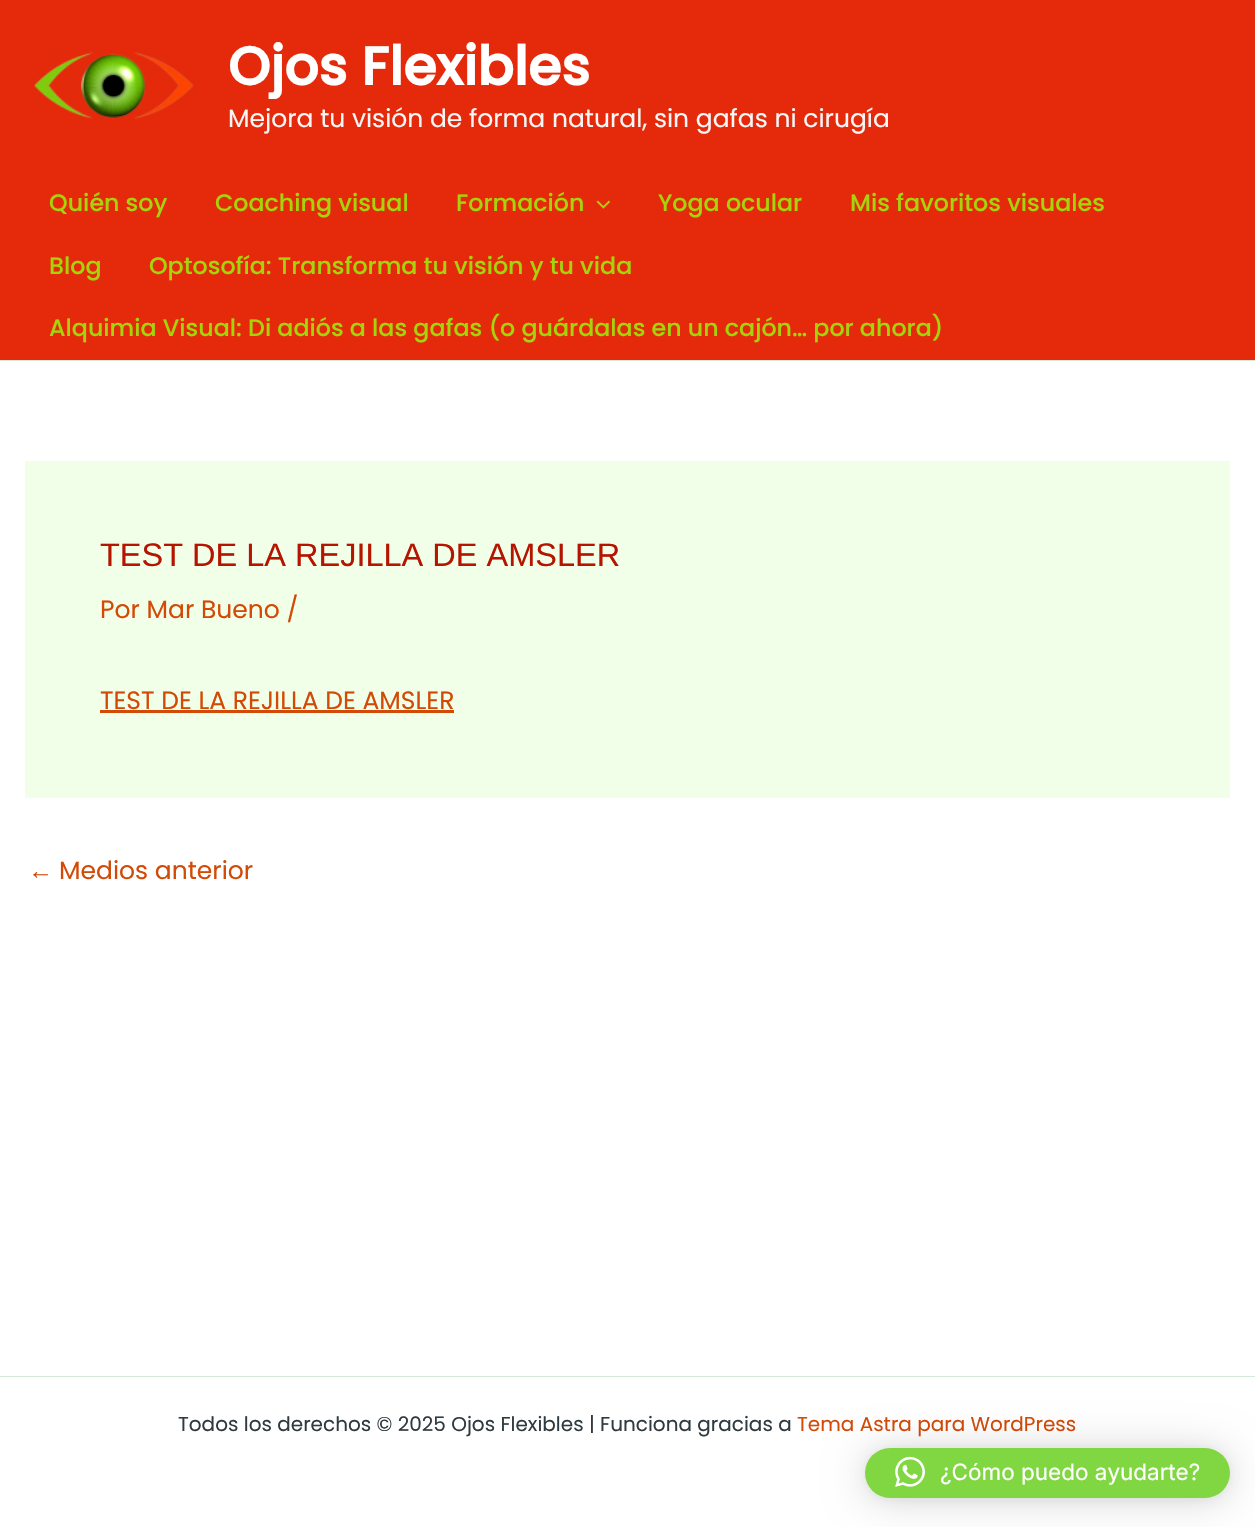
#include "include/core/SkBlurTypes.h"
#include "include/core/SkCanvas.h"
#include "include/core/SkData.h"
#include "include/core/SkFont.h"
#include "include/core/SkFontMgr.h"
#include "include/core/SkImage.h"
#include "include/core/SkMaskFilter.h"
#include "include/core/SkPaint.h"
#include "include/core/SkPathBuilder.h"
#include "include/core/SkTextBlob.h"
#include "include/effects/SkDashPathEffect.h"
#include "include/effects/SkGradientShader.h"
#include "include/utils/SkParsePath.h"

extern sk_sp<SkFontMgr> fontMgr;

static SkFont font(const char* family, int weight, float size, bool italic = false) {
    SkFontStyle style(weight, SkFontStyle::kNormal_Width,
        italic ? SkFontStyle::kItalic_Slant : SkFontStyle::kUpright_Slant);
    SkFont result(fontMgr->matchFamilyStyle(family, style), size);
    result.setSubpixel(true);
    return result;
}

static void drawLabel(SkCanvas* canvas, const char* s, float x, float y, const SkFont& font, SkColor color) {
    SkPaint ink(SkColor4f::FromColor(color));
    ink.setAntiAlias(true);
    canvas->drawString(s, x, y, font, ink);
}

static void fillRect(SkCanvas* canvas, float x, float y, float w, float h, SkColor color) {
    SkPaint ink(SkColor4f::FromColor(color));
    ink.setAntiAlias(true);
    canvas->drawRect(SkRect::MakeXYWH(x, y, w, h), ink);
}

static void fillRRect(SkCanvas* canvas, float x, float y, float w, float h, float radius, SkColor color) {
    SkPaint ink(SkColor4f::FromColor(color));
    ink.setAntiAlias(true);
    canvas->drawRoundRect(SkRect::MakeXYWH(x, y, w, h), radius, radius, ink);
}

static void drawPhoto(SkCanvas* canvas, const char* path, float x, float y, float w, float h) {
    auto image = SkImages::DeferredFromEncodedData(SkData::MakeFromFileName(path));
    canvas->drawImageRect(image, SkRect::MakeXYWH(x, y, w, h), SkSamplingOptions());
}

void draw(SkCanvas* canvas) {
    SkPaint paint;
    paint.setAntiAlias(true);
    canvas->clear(0xFFFFFFFF);
    fillRect(canvas, 0, 0, 1255, 360, 0xFFE42A0A);
    drawPhoto(canvas, "assets/img1.png", 33, 52, 161, 67);
    SkFont font1 = font("Poppins", 700, 53.75f);
    drawLabel(canvas, "Ojos Flexibles", 228, 85, font1, 0xFFFFFFFF);
    SkFont font2 = font("Poppins", 400, 25);
    drawLabel(canvas, "Mejora tu visión de forma natural, sin gafas ni cirugía", 228, 127, font2, 0xFFF7F7F7);
    fillRect(canvas, 0, 360, 1255, 1, 0xFFD5EAD8);
    SkFont font3 = font("Poppins", 500, 23.75f);
    drawLabel(canvas, "Quién soy", 49, 211, font3, 0xFFA5D40B);
    drawLabel(canvas, "Coaching visual", 215, 211, font3, 0xFFA5D40B);
    drawLabel(canvas, "Formación", 456, 211, font3, 0xFFA5D40B);
    drawPhoto(canvas, "assets/img2.png", 596, 200, 15, 9);
    drawLabel(canvas, "Yoga ocular", 658, 211, font3, 0xFFA5D40B);
    drawLabel(canvas, "Mis favoritos visuales", 850, 211, font3, 0xFFA5D40B);
    drawLabel(canvas, "Blog", 49, 274, font3, 0xFFA5D40B);
    drawLabel(canvas, "Optosofía: Transforma tu visión y tu vida", 149, 274, font3, 0xFFA5D40B);
    drawLabel(canvas, "Alquimia Visual: Di adiós a las gafas (o guárdalas en un cajón… por ahora)", 49, 336, font3, 0xFFA5D40B);
    fillRect(canvas, 25, 461, 1205, 337, 0xFFF1FEE8);
    SkFont font4 = font("Liberation Sans", 400, 32.5f);
    drawLabel(canvas, "TEST DE LA REJILLA DE AMSLER", 100, 566, font4, 0xFFB51500);
    drawLabel(canvas, "Por Mar Bueno /", 100, 618, font2, 0xFFD34A06);
    drawLabel(canvas, "TEST DE LA REJILLA DE AMSLER", 100, 709, font2, 0xFFD34A06);
    fillRect(canvas, 100, 710, 354, 3, 0xFFD34A06);
    SkFont font5 = font("Liberation Sans", 400, 25);
    drawLabel(canvas, "←", 28, 879, font5, 0xFFD34A06);
    drawLabel(canvas, "Medios anterior", 59, 879, font2, 0xFFD34A06);
    fillRect(canvas, 0, 1376, 1255, 1, 0xFFD5EAD8);
    SkFont font6 = font("Poppins", 400, 20);
    drawLabel(canvas, "Todos los derechos © 2025 Ojos Flexibles | Funciona gracias a", 178, 1431, font6, 0xFF2F3B40);
    drawLabel(canvas, "Tema Astra para WordPress", 797, 1431, font6, 0xFFD34A06);
    paint.setColor(0x29000000);
    paint.setMaskFilter(SkMaskFilter::MakeBlur(kNormal_SkBlurStyle, 20));
    canvas->drawRoundRect(SkRect::MakeXYWH(865, 1450, 365, 50), 25, 25, paint);
    paint.setMaskFilter(nullptr);
    paint.setColor(0x0F000000);
    paint.setMaskFilter(SkMaskFilter::MakeBlur(kNormal_SkBlurStyle, 4));
    canvas->drawRoundRect(SkRect::MakeXYWH(865, 1449, 365, 50), 25, 25, paint);
    paint.setMaskFilter(nullptr);
    fillRRect(canvas, 865, 1448, 365, 50, 25, 0xFF81D742);
    drawPhoto(canvas, "assets/img3.png", 895, 1456, 30, 31);
    SkFont font7 = font("Inter", 400, 22.5f);
    drawLabel(canvas, "¿Cómo puedo ayudarte?", 940, 1480, font7, 0xFFFFFFFF);
}
